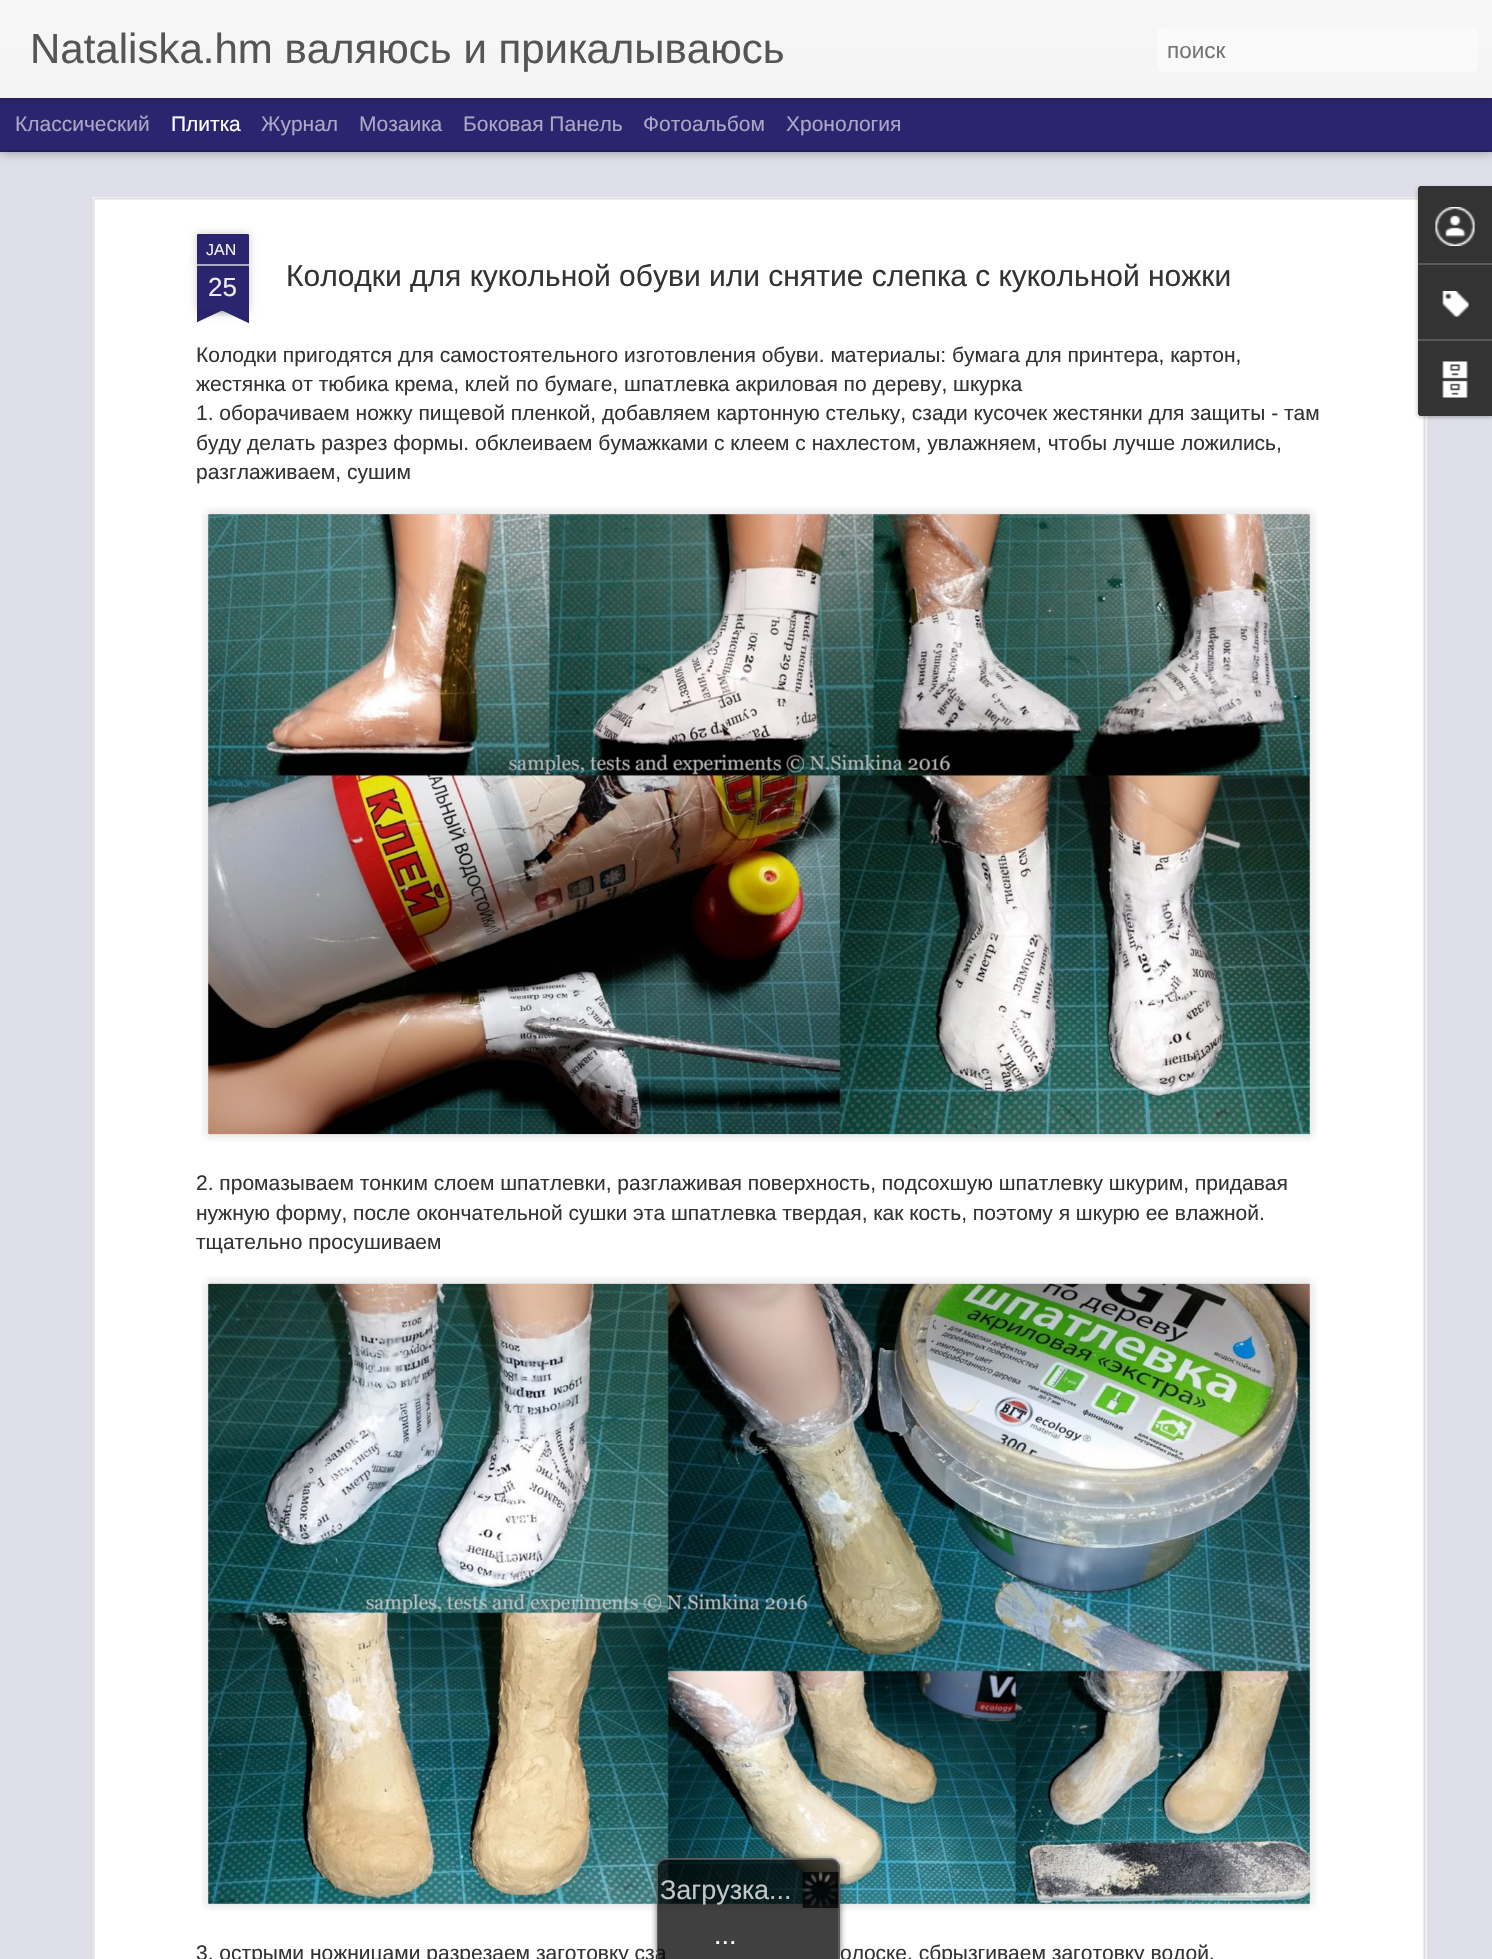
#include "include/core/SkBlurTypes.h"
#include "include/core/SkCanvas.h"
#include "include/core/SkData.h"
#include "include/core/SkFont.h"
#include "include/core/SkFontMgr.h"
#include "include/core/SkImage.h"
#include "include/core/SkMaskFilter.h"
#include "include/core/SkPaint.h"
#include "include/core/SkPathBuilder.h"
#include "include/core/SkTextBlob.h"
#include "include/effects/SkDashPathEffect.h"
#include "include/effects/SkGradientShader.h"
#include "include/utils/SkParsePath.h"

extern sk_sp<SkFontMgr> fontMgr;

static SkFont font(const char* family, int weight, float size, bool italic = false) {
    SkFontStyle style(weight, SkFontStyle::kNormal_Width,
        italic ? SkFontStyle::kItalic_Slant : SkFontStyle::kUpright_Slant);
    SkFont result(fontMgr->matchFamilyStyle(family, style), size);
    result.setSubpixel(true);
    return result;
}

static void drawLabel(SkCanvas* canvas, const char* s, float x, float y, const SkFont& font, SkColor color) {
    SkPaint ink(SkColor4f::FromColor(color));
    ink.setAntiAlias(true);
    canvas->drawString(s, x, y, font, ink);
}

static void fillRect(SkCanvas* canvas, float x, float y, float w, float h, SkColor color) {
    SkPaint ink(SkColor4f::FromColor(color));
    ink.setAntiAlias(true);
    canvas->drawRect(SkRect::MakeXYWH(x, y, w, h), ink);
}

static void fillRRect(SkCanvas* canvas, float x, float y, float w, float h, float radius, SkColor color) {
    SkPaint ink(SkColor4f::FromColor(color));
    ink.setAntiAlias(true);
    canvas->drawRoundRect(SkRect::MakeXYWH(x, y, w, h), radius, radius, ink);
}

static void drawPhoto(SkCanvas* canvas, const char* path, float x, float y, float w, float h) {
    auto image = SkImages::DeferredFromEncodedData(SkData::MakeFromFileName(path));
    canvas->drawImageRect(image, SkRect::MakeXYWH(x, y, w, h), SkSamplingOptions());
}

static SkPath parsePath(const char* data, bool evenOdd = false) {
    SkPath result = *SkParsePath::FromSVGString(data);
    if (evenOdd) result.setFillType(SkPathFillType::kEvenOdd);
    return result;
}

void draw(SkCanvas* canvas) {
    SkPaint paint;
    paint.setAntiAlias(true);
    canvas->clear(0xFF2B256F);
    fillRect(canvas, 0, 152, 1492, 1807, 0xFFDFDFEA);
    paint.setColor(0x80000000);
    paint.setMaskFilter(SkMaskFilter::MakeBlur(kNormal_SkBlurStyle, 6));
    canvas->drawRect(SkRect::MakeXYWH(0, 98, 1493, 52), paint);
    paint.setMaskFilter(nullptr);
    fillRect(canvas, 0, 98, 1492, 52, 0xFF2B256F);
    paint.setColor(0x4D000000);
    paint.setMaskFilter(SkMaskFilter::MakeBlur(kNormal_SkBlurStyle, 4));
    canvas->drawRect(SkRect::MakeXYWH(0, 0, 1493, 98), paint);
    paint.setMaskFilter(nullptr);
    {
        const SkColor colors[] = {0xFFF7F7F7, 0xFFF4F4F4};
        const float stops[] = {0, 1};
        const SkPoint ends[] = {{0, 0}, {0, 98}};
        paint.setShader(SkGradientShader::MakeLinear(ends, colors, stops, 2, SkTileMode::kClamp));
        paint.setAlpha(255);
    }
    canvas->drawRect(SkRect::MakeXYWH(0, 0, 1492, 98), paint);
    SkFont font1 = font("Liberation Sans", 400, 42);
    drawLabel(canvas, "Nataliska.hm валяюсь и прикалываюсь", 30, 63, font1, 0xFF555555);
    fillRRect(canvas, 1157, 27, 321, 45, 5, 0xFFFAFAFA);
    SkFont font2 = font("Liberation Sans", 400, 22.5f);
    drawLabel(canvas, "поиск", 1167, 58, font2, 0xFF757575);
    SkFont font3 = font("Liberation Sans", 400, 21);
    drawLabel(canvas, "Классический", 15, 131, font3, 0xFFAAA8C5);
    drawLabel(canvas, "Плитка", 171, 131, font3, 0xFFFFFFFF);
    drawLabel(canvas, "Журнал", 261, 131, font3, 0xFFAAA8C5);
    drawLabel(canvas, "Мозаика", 359, 131, font3, 0xFFAAA8C5);
    drawLabel(canvas, "Боковая Панель", 463, 131, font3, 0xFFAAA8C5);
    drawLabel(canvas, "Фотоальбом", 643, 131, font3, 0xFFAAA8C5);
    drawLabel(canvas, "Хронология", 786, 131, font3, 0xFFAAA8C5);
    fillRect(canvas, 92, 197, 1335, 1762, 0xFFFFFFFF);
    drawPhoto(canvas, "assets/img1.png", 91, 197, 1336, 1762);
    paint.setShader(nullptr);
    paint.setColor(0x33000000);
    paint.setMaskFilter(SkMaskFilter::MakeBlur(kNormal_SkBlurStyle, 4));
    canvas->drawRect(SkRect::MakeXYWH(197, 266, 52, 45), paint);
    paint.setMaskFilter(nullptr);
    fillRect(canvas, 197, 266, 52, 45, 0xFF2B256F);
    paint.setMaskFilter(SkMaskFilter::MakeBlur(kNormal_SkBlurStyle, 4));
    canvas->drawRoundRect(SkRect::MakeXYWH(197, 234, 52, 32), 1.5f, 1.5f, paint);
    paint.setMaskFilter(nullptr);
    paint.setColor(0xFF2B256F);
    canvas->drawPath(parsePath("M198.5 234H247.5C248.5 234 249 234.5 249 235.5V266H197V235.5C197 234.5 197.5 234 198.5 234Z"), paint);
    fillRect(canvas, 197, 264, 52, 2, 0xFFAAA8C5);
    SkFont font4 = font("Liberation Sans", 400, 16);
    drawLabel(canvas, "JAN", 206, 255, font4, 0xFFEEEEEE);
    SkFont font5 = font("Liberation Sans", 400, 26);
    drawLabel(canvas, "25", 208, 296, font5, 0xFFEEEEEE);
    canvas->save();
    canvas->clipRect(SkRect::MakeXYWH(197, 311, 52, 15));
    paint.setColor(0x33000000);
    paint.setMaskFilter(SkMaskFilter::MakeBlur(kNormal_SkBlurStyle, 4));
    canvas->drawRect(SkRect::MakeXYWH(183, 296, 75, 15), paint);
    paint.setMaskFilter(nullptr);
    canvas->restore();
    canvas->save();
    canvas->clipRect(SkRect::MakeXYWH(197, 311, 52, 15));
    paint.setColor(0xFF2B256F);
    canvas->drawPath(parsePath("M183 312L251 280L257 294L189 326Z"), paint);
    canvas->restore();
    canvas->save();
    canvas->clipRect(SkRect::MakeXYWH(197, 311, 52, 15));
    paint.setColor(0x33000000);
    paint.setMaskFilter(SkMaskFilter::MakeBlur(kNormal_SkBlurStyle, 4));
    canvas->drawRect(SkRect::MakeXYWH(188, 296, 75, 15), paint);
    paint.setMaskFilter(nullptr);
    canvas->restore();
    canvas->save();
    canvas->clipRect(SkRect::MakeXYWH(197, 311, 52, 15));
    paint.setColor(0xFF2B256F);
    canvas->drawPath(parsePath("M193 280L261 312L255 326L187 294Z"), paint);
    canvas->restore();
    SkFont font6 = font("Liberation Sans", 400, 30);
    drawLabel(canvas, "Колодки для кукольной обуви или снятие слепка с кукольной ножки", 286, 286, font6, 0xFF333333);
    drawLabel(canvas, "Колодки пригодятся для самостоятельного изготовления обуви. материалы: бумага для принтера, картон,", 196, 362, font3, 0xFF333333);
    drawLabel(canvas, "жестянка от тюбика крема, клей по бумаге, шпатлевка акриловая по дереву, шкурка", 196, 391, font3, 0xFF333333);
    drawLabel(canvas, "1. оборачиваем ножку пищевой пленкой, добавляем картонную стельку, сзади кусочек жестянки для защиты - там", 196, 420, font3, 0xFF333333);
    drawLabel(canvas, "буду делать разрез формы. обклеиваем бумажками с клеем с нахлестом, увлажняем, чтобы лучше ложились,", 196, 450, font3, 0xFF333333);
    drawLabel(canvas, "разглаживаем, сушим", 196, 479, font3, 0xFF333333);
    drawPhoto(canvas, "assets/img2.png", 201, 507, 1116, 635);
    drawPhoto(canvas, "assets/img3.png", 208, 514, 1102, 621);
    drawLabel(canvas, "2. промазываем тонким слоем шпатлевки, разглаживая поверхность, подсохшую шпатлевку шкурим, придавая", 196, 1190, font3, 0xFF333333);
    drawLabel(canvas, "нужную форму, после окончательной сушки эта шпатлевка твердая, как кость, поэтому я шкурю ее влажной.", 196, 1220, font3, 0xFF333333);
    drawLabel(canvas, "тщательно просушиваем", 196, 1249, font3, 0xFF333333);
    drawPhoto(canvas, "assets/img4.png", 201, 1276, 1116, 635);
    drawPhoto(canvas, "assets/img5.png", 208, 1283, 1102, 621);
    drawLabel(canvas, "3. острыми ножницами разрезаем заготовку сза", 196, 1960, font3, 0xFF333333);
    drawLabel(canvas, "олоске, сбрызгиваем заготовку водой,", 840, 1960, font3, 0xFF333333);
    paint.setColor(0x4D000000);
    paint.setMaskFilter(SkMaskFilter::MakeBlur(kNormal_SkBlurStyle, 2));
    canvas->drawRoundRect(SkRect::MakeXYWH(1418, 188, 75, 229), 3, 3, paint);
    paint.setMaskFilter(nullptr);
    paint.setColor(0xFF333333);
    canvas->drawPath(parsePath("M1421 186H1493V416H1421C1419.5 416 1418 414.5 1418 413V189C1418 187.5 1419.5 186 1421 186Z"), paint);
    canvas->drawPath(parsePath("M1421 186H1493V263H1418V189C1418 187.5 1419.5 186 1421 186Z"), paint);
    drawPhoto(canvas, "assets/img6.png", 1435, 207, 40, 39);
    fillRect(canvas, 1418, 263, 74, 2, 0xFF585858);
    drawPhoto(canvas, "assets/img7.png", 1442, 291, 27, 26);
    canvas->drawPath(parsePath("M1418 339H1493V416H1421C1419.5 416 1418 414.5 1418 413Z"), paint);
    fillRect(canvas, 1418, 339, 74, 2, 0xFF585858);
    drawPhoto(canvas, "assets/img8.png", 1442, 361, 26, 37);
    canvas->save();
    canvas->clipPath(parsePath("M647 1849H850V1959H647ZM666 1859H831C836 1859 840 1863 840 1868V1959H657V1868C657 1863 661 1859 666 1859Z", true), true);
    paint.setColor(0xBF333333);
    paint.setMaskFilter(SkMaskFilter::MakeBlur(kNormal_SkBlurStyle, 3));
    canvas->drawRoundRect(SkRect::MakeXYWH(657, 1859, 183, 100), 9, 9, paint);
    paint.setMaskFilter(nullptr);
    canvas->restore();
    paint.setColor(0xBF000000);
    canvas->drawPath(parsePath("M666 1859H831C836 1859 840 1863 840 1868V1959H657V1868C657 1863 661 1859 666 1859Z"), paint);
    paint.setColor(0xBF666666);
    canvas->drawPath(parsePath("M666 1858H831C836 1858 840 1863 840 1868V1959H657V1868C657 1863 661 1858 666 1858ZM666 1860H831C835 1860 838 1863 838 1868V1959H658V1868C658 1863 662 1860 666 1860Z", true), paint);
    drawPhoto(canvas, "assets/img9.png", 802, 1872, 37, 36);
    SkFont font7 = font("Liberation Sans", 400, 27);
    drawLabel(canvas, "Загрузка...", 660, 1899, font7, 0xFFC1C6C6);
    drawLabel(canvas, "...", 714, 1944, font7, 0xFFFFFFFF);
}
